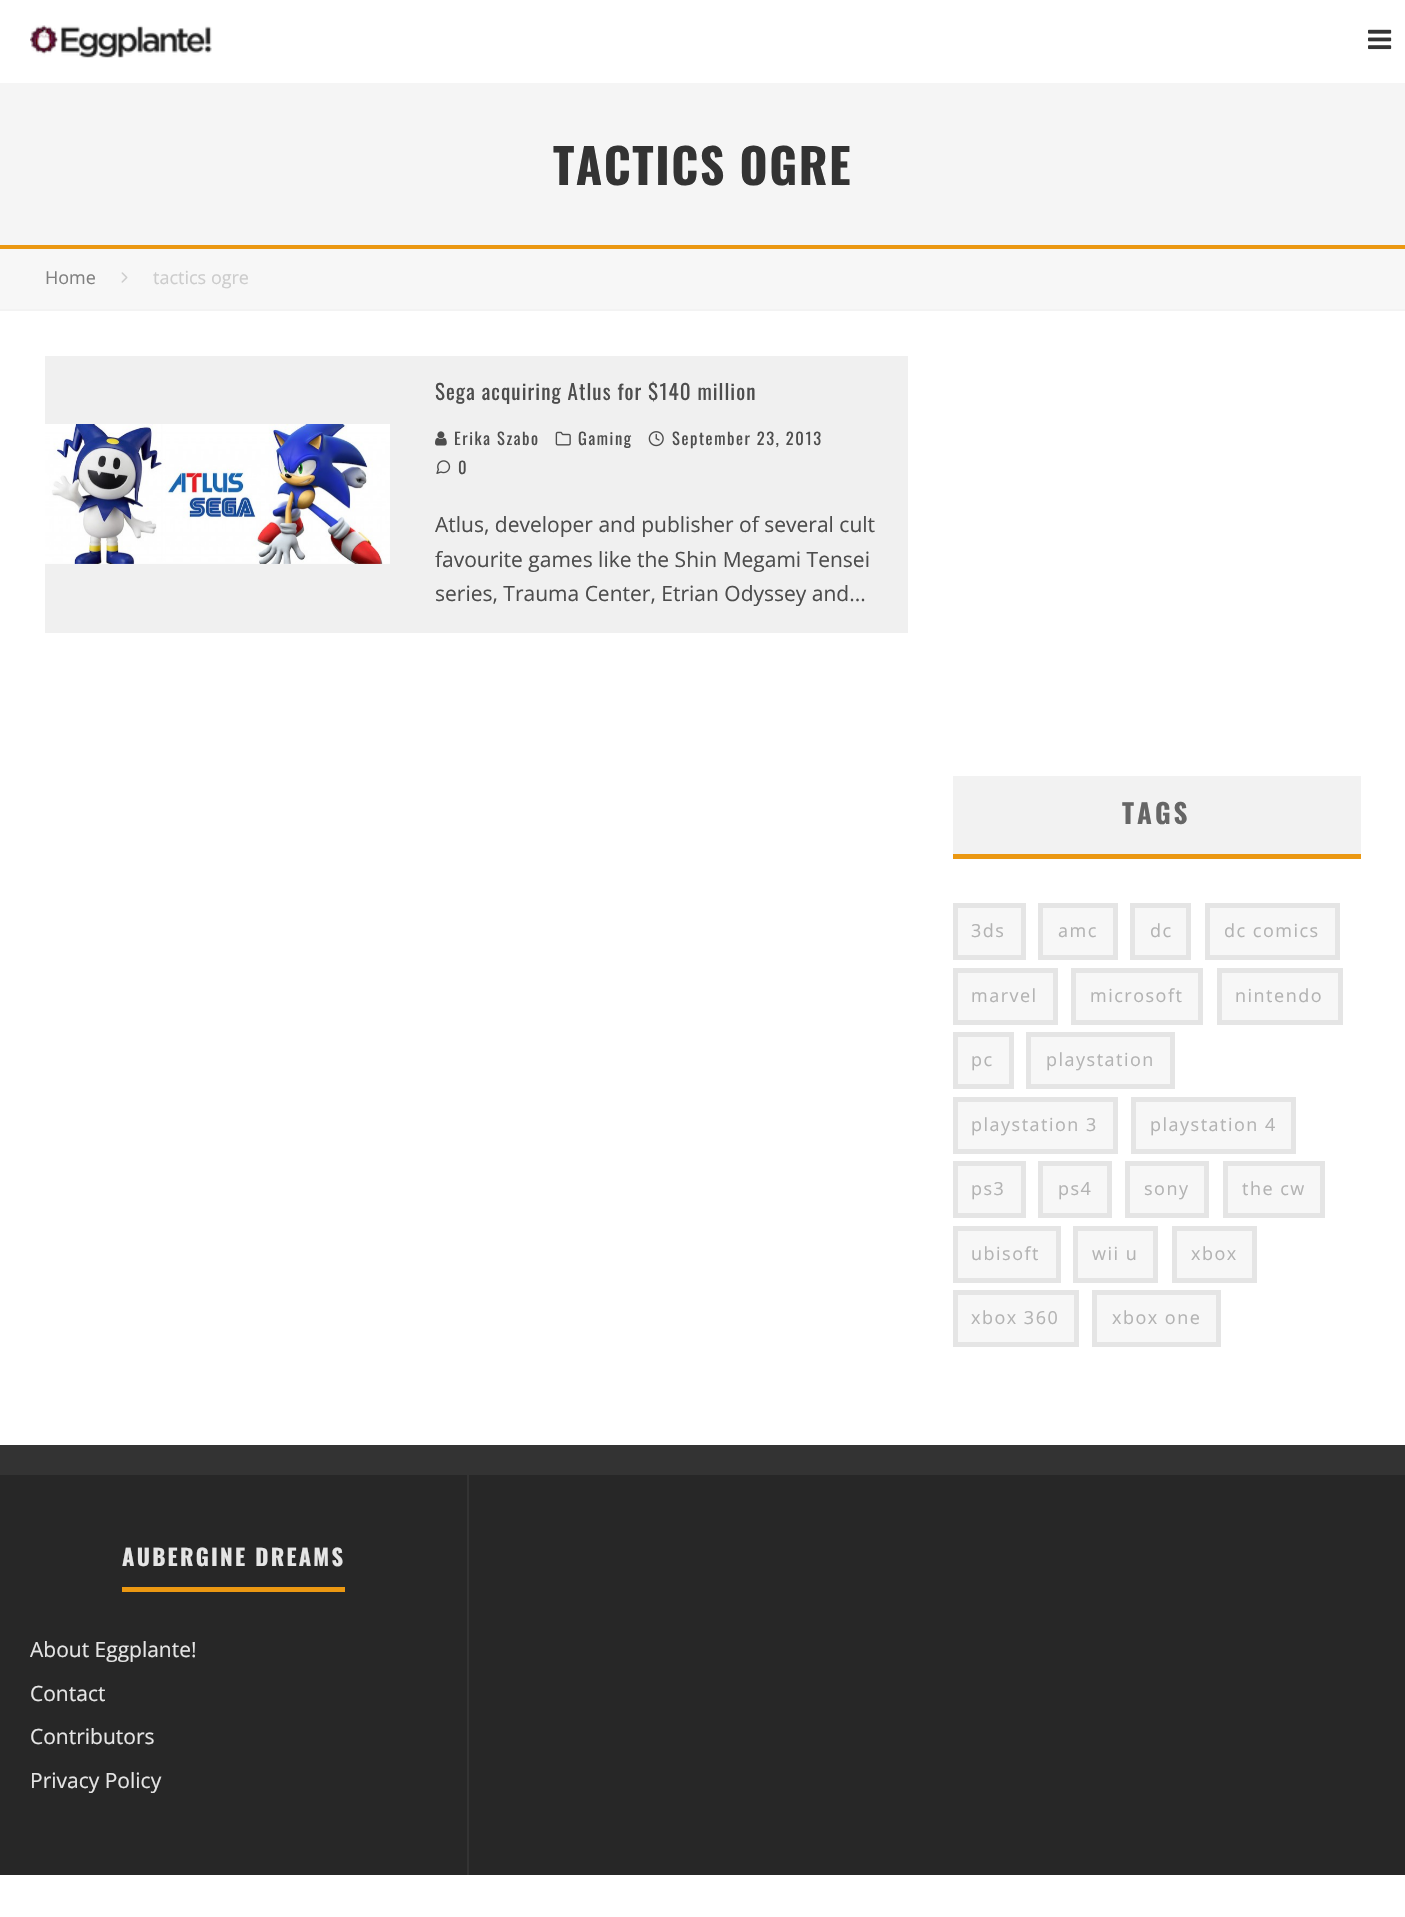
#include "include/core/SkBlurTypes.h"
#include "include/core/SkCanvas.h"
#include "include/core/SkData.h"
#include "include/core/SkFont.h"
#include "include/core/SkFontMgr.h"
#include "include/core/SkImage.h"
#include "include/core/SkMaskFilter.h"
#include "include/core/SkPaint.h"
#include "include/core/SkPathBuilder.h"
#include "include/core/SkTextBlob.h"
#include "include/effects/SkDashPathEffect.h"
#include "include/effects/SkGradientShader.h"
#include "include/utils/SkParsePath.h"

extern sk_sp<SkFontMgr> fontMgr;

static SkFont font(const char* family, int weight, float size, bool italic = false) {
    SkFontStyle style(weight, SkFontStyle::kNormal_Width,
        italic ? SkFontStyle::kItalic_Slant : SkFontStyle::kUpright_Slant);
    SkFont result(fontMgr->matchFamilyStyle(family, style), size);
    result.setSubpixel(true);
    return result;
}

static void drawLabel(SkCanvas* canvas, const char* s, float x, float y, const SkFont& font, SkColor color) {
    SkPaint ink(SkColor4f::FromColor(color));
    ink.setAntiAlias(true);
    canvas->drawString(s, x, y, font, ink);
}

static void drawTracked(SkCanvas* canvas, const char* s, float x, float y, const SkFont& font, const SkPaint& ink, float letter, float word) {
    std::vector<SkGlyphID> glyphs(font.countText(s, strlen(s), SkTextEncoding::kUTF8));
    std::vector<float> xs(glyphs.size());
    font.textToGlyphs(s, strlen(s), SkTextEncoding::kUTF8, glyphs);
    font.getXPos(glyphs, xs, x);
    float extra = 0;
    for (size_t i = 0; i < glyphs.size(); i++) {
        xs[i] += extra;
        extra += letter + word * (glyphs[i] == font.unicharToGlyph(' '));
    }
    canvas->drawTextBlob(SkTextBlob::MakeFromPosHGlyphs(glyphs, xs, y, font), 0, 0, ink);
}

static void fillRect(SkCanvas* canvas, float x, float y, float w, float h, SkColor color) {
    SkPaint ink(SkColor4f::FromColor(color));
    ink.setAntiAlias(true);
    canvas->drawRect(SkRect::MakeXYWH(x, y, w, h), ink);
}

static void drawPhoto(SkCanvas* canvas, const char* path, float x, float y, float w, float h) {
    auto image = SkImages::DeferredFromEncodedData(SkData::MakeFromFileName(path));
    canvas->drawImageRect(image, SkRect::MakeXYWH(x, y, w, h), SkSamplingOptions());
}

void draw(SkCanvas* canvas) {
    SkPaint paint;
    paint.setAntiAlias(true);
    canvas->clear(0xFFFFFFFF);
    drawPhoto(canvas, "assets/img1.png", 30, 25, 182, 33);
    drawPhoto(canvas, "assets/img2.png", 1368, 29, 24, 21);
    fillRect(canvas, 0, 83, 1405, 162, 0xFFF5F5F5);
    fillRect(canvas, 0, 245, 1405, 4, 0xFFEB9812);
    SkFont font1 = font("Oswald", 700, 48);
    paint.setColor(0xFF333333);
    drawTracked(canvas, "TACTICS OGRE", 553, 185, font1, paint, 1.5f, 0);
    fillRect(canvas, 0, 249, 1405, 60, 0xFFF7F7F7);
    fillRect(canvas, 0, 309, 1405, 2, 0xFFF3F3F3);
    SkFont font2 = font("Open Sans", 400, 18);
    drawLabel(canvas, "Home", 45, 284, font2, 0xFF808080);
    drawPhoto(canvas, "assets/img3.png", 121, 272, 7, 11);
    drawLabel(canvas, "tactics ogre", 153, 284, font2, 0xFFCCCCCC);
    fillRect(canvas, 45, 356, 863, 277, 0xFFF0F0F0);
    drawPhoto(canvas, "assets/img4.png", 45, 424, 345, 140);
    SkFont font3 = font("Oswald", 400, 21);
    paint.setColor(0xFF4D4D4D);
    drawTracked(canvas, "Sega acquiring Atlus for $140 million", 435, 400, font3, paint, 1.05f, 0);
    drawPhoto(canvas, "assets/img5.png", 435, 431, 12, 15);
    SkFont font4 = font("Oswald", 400, 16.5f);
    drawTracked(canvas, "Erika Szabo", 454, 445, font4, paint, 1.6f, 0);
    drawPhoto(canvas, "assets/img6.png", 555, 431, 16, 15);
    drawTracked(canvas, "Gaming", 578, 445, font4, paint, 1.6f, 0);
    drawPhoto(canvas, "assets/img7.png", 648, 431, 16, 16);
    drawTracked(canvas, "September 23, 2013", 672, 445, font4, paint, 1.6f, 0);
    drawPhoto(canvas, "assets/img8.png", 436, 460, 15, 14);
    drawTracked(canvas, "0", 458, 474, font4, paint, 1.6f, 0);
    SkFont font5 = font("Open Sans", 400, 21);
    drawLabel(canvas, "Atlus, developer and publisher of several cult", 435, 532, font5, 0xFF4D4D4D);
    drawLabel(canvas, "favourite games like the Shin Megami Tensei", 435, 567, font5, 0xFF4D4D4D);
    drawLabel(canvas, "series, Trauma Center, Etrian Odyssey and...", 435, 601, font5, 0xFF4D4D4D);
    fillRect(canvas, 953, 776, 408, 78, 0xFFF2F2F2);
    fillRect(canvas, 953, 854, 408, 5, 0xFFEB9812);
    SkFont font6 = font("Oswald", 700, 27);
    paint.setColor(0xFF666666);
    drawTracked(canvas, "TAGS", 1122, 824, font6, paint, 3, 0);
    paint.setColor(0xFFF7F7F7);
    canvas->drawRect(SkRect::MakeXYWH(955.5f, 905.5f, 68, 52), paint);
    paint.setStroke(true);
    paint.setStrokeWidth(5);
    paint.setColor(0xFFE5E5E5);
    canvas->drawRect(SkRect::MakeXYWH(955.5f, 905.5f, 68, 52), paint);
    paint.setStroke(false);
    paint.setColor(0xFFB3B3B3);
    drawTracked(canvas, "3ds", 971, 937, font2, paint, 1.5f, 0);
    paint.setColor(0xFFF7F7F7);
    canvas->drawRect(SkRect::MakeXYWH(1040.5f, 905.5f, 75, 52), paint);
    paint.setStroke(true);
    paint.setColor(0xFFE5E5E5);
    canvas->drawRect(SkRect::MakeXYWH(1040.5f, 905.5f, 75, 52), paint);
    paint.setStroke(false);
    paint.setColor(0xFFB3B3B3);
    drawTracked(canvas, "amc", 1058, 937, font2, paint, 1.5f, 0);
    paint.setColor(0xFFF7F7F7);
    canvas->drawRect(SkRect::MakeXYWH(1132.5f, 905.5f, 56, 52), paint);
    paint.setStroke(true);
    paint.setColor(0xFFE5E5E5);
    canvas->drawRect(SkRect::MakeXYWH(1132.5f, 905.5f, 56, 52), paint);
    paint.setStroke(false);
    paint.setColor(0xFFB3B3B3);
    drawTracked(canvas, "dc", 1150, 937, font2, paint, 1.5f, 0);
    paint.setColor(0xFFF7F7F7);
    canvas->drawRect(SkRect::MakeXYWH(1207.5f, 905.5f, 130, 52), paint);
    paint.setStroke(true);
    paint.setColor(0xFFE5E5E5);
    canvas->drawRect(SkRect::MakeXYWH(1207.5f, 905.5f, 130, 52), paint);
    paint.setStroke(false);
    paint.setColor(0xFFB3B3B3);
    drawTracked(canvas, "dc comics", 1224, 937, font2, paint, 1.5f, 0);
    paint.setColor(0xFFF7F7F7);
    canvas->drawRect(SkRect::MakeXYWH(955.5f, 970.5f, 100, 52), paint);
    paint.setStroke(true);
    paint.setColor(0xFFE5E5E5);
    canvas->drawRect(SkRect::MakeXYWH(955.5f, 970.5f, 100, 52), paint);
    paint.setStroke(false);
    paint.setColor(0xFFB3B3B3);
    drawTracked(canvas, "marvel", 971, 1002, font2, paint, 1.5f, 0);
    paint.setColor(0xFFF7F7F7);
    canvas->drawRect(SkRect::MakeXYWH(1073.5f, 970.5f, 127, 52), paint);
    paint.setStroke(true);
    paint.setColor(0xFFE5E5E5);
    canvas->drawRect(SkRect::MakeXYWH(1073.5f, 970.5f, 127, 52), paint);
    paint.setStroke(false);
    paint.setColor(0xFFB3B3B3);
    drawTracked(canvas, "microsoft", 1090, 1002, font2, paint, 1.5f, 0);
    paint.setColor(0xFFF7F7F7);
    canvas->drawRect(SkRect::MakeXYWH(1219.5f, 970.5f, 121, 52), paint);
    paint.setStroke(true);
    paint.setColor(0xFFE5E5E5);
    canvas->drawRect(SkRect::MakeXYWH(1219.5f, 970.5f, 121, 52), paint);
    paint.setStroke(false);
    paint.setColor(0xFFB3B3B3);
    drawTracked(canvas, "nintendo", 1235, 1002, font2, paint, 1.5f, 0);
    paint.setColor(0xFFF7F7F7);
    canvas->drawRect(SkRect::MakeXYWH(955.5f, 1034.5f, 56, 52), paint);
    paint.setStroke(true);
    paint.setColor(0xFFE5E5E5);
    canvas->drawRect(SkRect::MakeXYWH(955.5f, 1034.5f, 56, 52), paint);
    paint.setStroke(false);
    paint.setColor(0xFFB3B3B3);
    drawTracked(canvas, "pc", 971, 1066, font2, paint, 1.5f, 0);
    paint.setColor(0xFFF7F7F7);
    canvas->drawRect(SkRect::MakeXYWH(1028.5f, 1034.5f, 144, 52), paint);
    paint.setStroke(true);
    paint.setColor(0xFFE5E5E5);
    canvas->drawRect(SkRect::MakeXYWH(1028.5f, 1034.5f, 144, 52), paint);
    paint.setStroke(false);
    paint.setColor(0xFFB3B3B3);
    drawTracked(canvas, "playstation", 1046, 1066, font2, paint, 1.5f, 0);
    paint.setColor(0xFFF7F7F7);
    canvas->drawRect(SkRect::MakeXYWH(955.5f, 1099.5f, 160, 52), paint);
    paint.setStroke(true);
    paint.setColor(0xFFE5E5E5);
    canvas->drawRect(SkRect::MakeXYWH(955.5f, 1099.5f, 160, 52), paint);
    paint.setStroke(false);
    paint.setColor(0xFFB3B3B3);
    drawTracked(canvas, "playstation 3", 971, 1131, font2, paint, 1.5f, 0);
    paint.setColor(0xFFF7F7F7);
    canvas->drawRect(SkRect::MakeXYWH(1133.5f, 1099.5f, 160, 52), paint);
    paint.setStroke(true);
    paint.setColor(0xFFE5E5E5);
    canvas->drawRect(SkRect::MakeXYWH(1133.5f, 1099.5f, 160, 52), paint);
    paint.setStroke(false);
    paint.setColor(0xFFB3B3B3);
    drawTracked(canvas, "playstation 4", 1150, 1131, font2, paint, 1.5f, 0);
    paint.setColor(0xFFF7F7F7);
    canvas->drawRect(SkRect::MakeXYWH(955.5f, 1163.5f, 68, 52), paint);
    paint.setStroke(true);
    paint.setColor(0xFFE5E5E5);
    canvas->drawRect(SkRect::MakeXYWH(955.5f, 1163.5f, 68, 52), paint);
    paint.setStroke(false);
    paint.setColor(0xFFB3B3B3);
    drawTracked(canvas, "ps3", 971, 1195, font2, paint, 1.5f, 0);
    paint.setColor(0xFFF7F7F7);
    canvas->drawRect(SkRect::MakeXYWH(1040.5f, 1163.5f, 69, 52), paint);
    paint.setStroke(true);
    paint.setColor(0xFFE5E5E5);
    canvas->drawRect(SkRect::MakeXYWH(1040.5f, 1163.5f, 69, 52), paint);
    paint.setStroke(false);
    paint.setColor(0xFFB3B3B3);
    drawTracked(canvas, "ps4", 1058, 1195, font2, paint, 1.5f, 0);
    paint.setColor(0xFFF7F7F7);
    canvas->drawRect(SkRect::MakeXYWH(1127.5f, 1163.5f, 79, 52), paint);
    paint.setStroke(true);
    paint.setColor(0xFFE5E5E5);
    canvas->drawRect(SkRect::MakeXYWH(1127.5f, 1163.5f, 79, 52), paint);
    paint.setStroke(false);
    paint.setColor(0xFFB3B3B3);
    drawTracked(canvas, "sony", 1144, 1195, font2, paint, 1.5f, 0);
    paint.setColor(0xFFF7F7F7);
    canvas->drawRect(SkRect::MakeXYWH(1225.5f, 1163.5f, 97, 52), paint);
    paint.setStroke(true);
    paint.setColor(0xFFE5E5E5);
    canvas->drawRect(SkRect::MakeXYWH(1225.5f, 1163.5f, 97, 52), paint);
    paint.setStroke(false);
    paint.setColor(0xFFB3B3B3);
    drawTracked(canvas, "the cw", 1242, 1195, font2, paint, 1.5f, 0);
    paint.setColor(0xFFF7F7F7);
    canvas->drawRect(SkRect::MakeXYWH(955.5f, 1228.5f, 103, 52), paint);
    paint.setStroke(true);
    paint.setColor(0xFFE5E5E5);
    canvas->drawRect(SkRect::MakeXYWH(955.5f, 1228.5f, 103, 52), paint);
    paint.setStroke(false);
    paint.setColor(0xFFB3B3B3);
    drawTracked(canvas, "ubisoft", 971, 1260, font2, paint, 1.5f, 0);
    paint.setColor(0xFFF7F7F7);
    canvas->drawRect(SkRect::MakeXYWH(1075.5f, 1228.5f, 80, 52), paint);
    paint.setStroke(true);
    paint.setColor(0xFFE5E5E5);
    canvas->drawRect(SkRect::MakeXYWH(1075.5f, 1228.5f, 80, 52), paint);
    paint.setStroke(false);
    paint.setColor(0xFFB3B3B3);
    drawTracked(canvas, "wii u", 1092, 1260, font2, paint, 1.5f, 0);
    paint.setColor(0xFFF7F7F7);
    canvas->drawRect(SkRect::MakeXYWH(1174.5f, 1228.5f, 80, 52), paint);
    paint.setStroke(true);
    paint.setColor(0xFFE5E5E5);
    canvas->drawRect(SkRect::MakeXYWH(1174.5f, 1228.5f, 80, 52), paint);
    paint.setStroke(false);
    paint.setColor(0xFFB3B3B3);
    drawTracked(canvas, "xbox", 1191, 1260, font2, paint, 1.5f, 0);
    paint.setColor(0xFFF7F7F7);
    canvas->drawRect(SkRect::MakeXYWH(955.5f, 1292.5f, 121, 52), paint);
    paint.setStroke(true);
    paint.setColor(0xFFE5E5E5);
    canvas->drawRect(SkRect::MakeXYWH(955.5f, 1292.5f, 121, 52), paint);
    paint.setStroke(false);
    paint.setColor(0xFFB3B3B3);
    drawTracked(canvas, "xbox 360", 971, 1324, font2, paint, 1.5f, 0);
    paint.setColor(0xFFF7F7F7);
    canvas->drawRect(SkRect::MakeXYWH(1094.5f, 1292.5f, 124, 52), paint);
    paint.setStroke(true);
    paint.setColor(0xFFE5E5E5);
    canvas->drawRect(SkRect::MakeXYWH(1094.5f, 1292.5f, 124, 52), paint);
    paint.setStroke(false);
    paint.setColor(0xFFB3B3B3);
    drawTracked(canvas, "xbox one", 1112, 1324, font2, paint, 1.5f, 0);
    fillRect(canvas, 0, 1445, 1405, 30, 0xFF333333);
    fillRect(canvas, 0, 1475, 1405, 400, 0xFF272727);
    fillRect(canvas, 467, 1475, 2, 400, 0xFF333333);
    SkFont font7 = font("Oswald", 700, 22.5f);
    paint.setColor(0xFFE5E5E5);
    drawTracked(canvas, "AUBERGINE DREAMS", 122, 1566, font7, paint, 2.25f, 0);
    fillRect(canvas, 122, 1587, 223, 5, 0xFFEB9812);
    drawLabel(canvas, "About Eggplante!", 30, 1657, font5, 0xFFE5E5E5);
    drawLabel(canvas, "Contact", 30, 1701, font5, 0xFFE5E5E5);
    drawLabel(canvas, "Contributors", 30, 1744, font5, 0xFFE5E5E5);
    drawLabel(canvas, "Privacy Policy", 30, 1788, font5, 0xFFE5E5E5);
}
